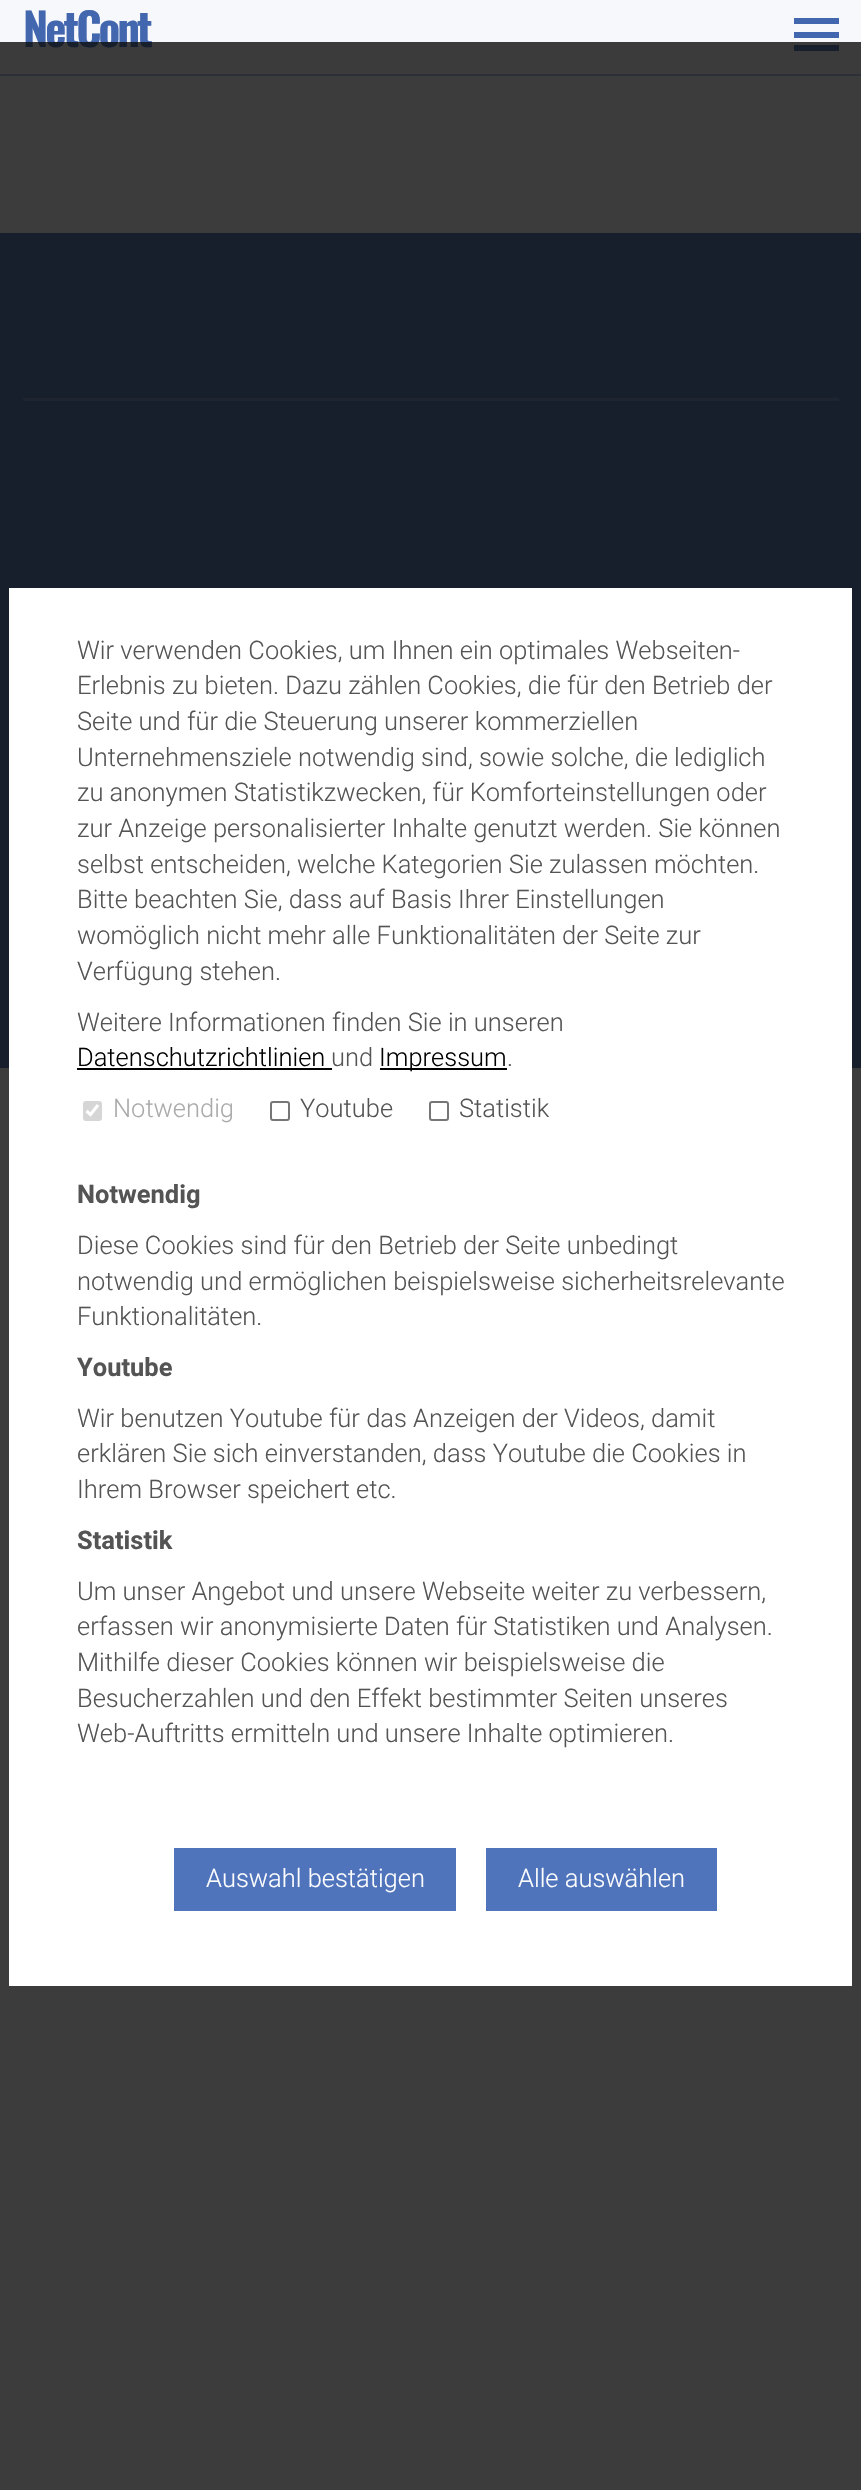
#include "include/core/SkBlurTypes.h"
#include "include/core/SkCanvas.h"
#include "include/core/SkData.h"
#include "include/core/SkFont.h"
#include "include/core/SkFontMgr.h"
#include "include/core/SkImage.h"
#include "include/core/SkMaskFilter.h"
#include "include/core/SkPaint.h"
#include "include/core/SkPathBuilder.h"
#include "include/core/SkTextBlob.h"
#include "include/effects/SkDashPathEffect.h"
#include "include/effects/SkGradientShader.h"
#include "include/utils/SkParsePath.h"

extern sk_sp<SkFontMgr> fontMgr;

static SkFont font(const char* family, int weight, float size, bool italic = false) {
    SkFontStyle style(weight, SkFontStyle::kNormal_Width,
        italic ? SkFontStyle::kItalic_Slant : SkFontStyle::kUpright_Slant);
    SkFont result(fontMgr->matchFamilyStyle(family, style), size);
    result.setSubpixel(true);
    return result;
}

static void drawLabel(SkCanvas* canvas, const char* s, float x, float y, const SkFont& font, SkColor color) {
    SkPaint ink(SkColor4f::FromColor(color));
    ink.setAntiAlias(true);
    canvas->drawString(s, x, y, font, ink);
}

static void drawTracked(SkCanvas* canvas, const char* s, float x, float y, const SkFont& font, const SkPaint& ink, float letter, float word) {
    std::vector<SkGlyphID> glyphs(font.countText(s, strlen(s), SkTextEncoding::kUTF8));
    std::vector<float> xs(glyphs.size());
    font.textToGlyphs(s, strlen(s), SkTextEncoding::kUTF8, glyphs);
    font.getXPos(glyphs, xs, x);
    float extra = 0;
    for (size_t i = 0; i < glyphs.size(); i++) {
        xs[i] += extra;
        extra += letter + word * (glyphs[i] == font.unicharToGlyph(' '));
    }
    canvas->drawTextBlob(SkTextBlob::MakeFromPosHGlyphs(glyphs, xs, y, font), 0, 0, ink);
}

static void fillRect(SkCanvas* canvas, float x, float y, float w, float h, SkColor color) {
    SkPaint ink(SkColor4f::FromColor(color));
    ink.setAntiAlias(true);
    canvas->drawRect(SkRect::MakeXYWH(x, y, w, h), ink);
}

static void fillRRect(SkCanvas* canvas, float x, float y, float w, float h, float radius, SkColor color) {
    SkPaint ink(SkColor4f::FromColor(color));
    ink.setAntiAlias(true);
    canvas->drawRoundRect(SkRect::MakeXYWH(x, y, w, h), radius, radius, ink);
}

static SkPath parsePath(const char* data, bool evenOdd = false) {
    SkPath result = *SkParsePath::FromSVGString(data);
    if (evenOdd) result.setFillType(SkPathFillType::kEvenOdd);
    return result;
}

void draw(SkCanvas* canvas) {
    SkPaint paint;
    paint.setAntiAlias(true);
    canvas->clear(0xFFFFFFFF);
    fillRect(canvas, 0, 0, 861, 74, 0xFFF6F8FC);
    fillRect(canvas, 0, 74, 861, 2, 0xFFACBDDF);
    SkFont font1 = font("Oswald", 700, 45);
    paint.setColor(0xFF4367AF);
    drawTracked(canvas, "NetCont", 23, 47, font1, paint, -3, 0);
    fillRect(canvas, 794, 32, 45, 6, 0xFF4367AF);
    fillRect(canvas, 794, 18, 45, 6, 0xFF4367AF);
    fillRect(canvas, 794, 45, 45, 6, 0xFF4367AF);
    fillRect(canvas, 0, 233, 861, 835, 0xFF4367AF);
    fillRect(canvas, 23, 398, 816, 3, 0xFF6D89C2);
    fillRect(canvas, 0, 42, 861, 2448, 0xCC0B0B0B);
    fillRect(canvas, 9, 588, 843, 1398, 0xFFFFFFFF);
    SkFont font2 = font("Roboto", 300, 25.5f);
    drawLabel(canvas, "Wir verwenden Cookies, um Ihnen ein optimales Webseiten-", 77, 659, font2, 0xFF545454);
    drawLabel(canvas, "Erlebnis zu bieten. Dazu zählen Cookies, die für den Betrieb der", 77, 694, font2, 0xFF545454);
    drawLabel(canvas, "Seite und für die Steuerung unserer kommerziellen", 77, 730, font2, 0xFF545454);
    drawLabel(canvas, "Unternehmensziele notwendig sind, sowie solche, die lediglich", 77, 766, font2, 0xFF545454);
    drawLabel(canvas, "zu anonymen Statistikzwecken, für Komforteinstellungen oder", 77, 801, font2, 0xFF545454);
    drawLabel(canvas, "zur Anzeige personalisierter Inhalte genutzt werden. Sie können", 77, 837, font2, 0xFF545454);
    drawLabel(canvas, "selbst entscheiden, welche Kategorien Sie zulassen möchten.", 77, 873, font2, 0xFF545454);
    drawLabel(canvas, "Bitte beachten Sie, dass auf Basis Ihrer Einstellungen", 77, 908, font2, 0xFF545454);
    drawLabel(canvas, "womöglich nicht mehr alle Funktionalitäten der Seite zur", 77, 944, font2, 0xFF545454);
    drawLabel(canvas, "Verfügung stehen.", 77, 980, font2, 0xFF545454);
    drawLabel(canvas, "Weitere Informationen finden Sie in unseren", 77, 1031, font2, 0xFF545454);
    drawLabel(canvas, "Datenschutzrichtlinien", 77, 1066, font2, 0xFF000100);
    fillRect(canvas, 77, 1068, 255, 2, 0xFF000100);
    drawLabel(canvas, "und", 331, 1066, font2, 0xFF545454);
    fillRect(canvas, 380, 1068, 127, 2, 0xFF000100);
    drawLabel(canvas, "Impressum", 379, 1066, font2, 0xFF000100);
    drawLabel(canvas, ".", 507, 1066, font2, 0xFF545454);
    fillRRect(canvas, 83, 1101, 19, 20, 3, 0xFFD6D6D6);
    paint.setStroke(true);
    paint.setStrokeWidth(3.1f);
    paint.setColor(0xFFFFFFFF);
    canvas->drawPath(parsePath("M86.5 1111L90.5 1114.5L98 1105"), paint);
    drawLabel(canvas, "Notwendig", 113, 1117, font2, 0xFFAAAAAA);
    paint.setStrokeWidth(2);
    paint.setColor(0xFF767676);
    canvas->drawRoundRect(SkRect::MakeXYWH(271, 1102, 18, 18), 2, 2, paint);
    drawLabel(canvas, "Youtube", 300, 1117, font2, 0xFF545454);
    canvas->drawRoundRect(SkRect::MakeXYWH(430, 1102, 18, 18), 2, 2, paint);
    drawLabel(canvas, "Statistik", 459, 1117, font2, 0xFF545454);
    SkFont font3 = font("Roboto", 700, 25.5f);
    drawLabel(canvas, "Notwendig", 77, 1203, font3, 0xFF545454);
    drawLabel(canvas, "Diese Cookies sind für den Betrieb der Seite unbedingt", 77, 1254, font2, 0xFF545454);
    drawLabel(canvas, "notwendig und ermöglichen beispielsweise sicherheitsrelevante", 77, 1290, font2, 0xFF545454);
    drawLabel(canvas, "Funktionalitäten.", 77, 1325, font2, 0xFF545454);
    drawLabel(canvas, "Youtube", 77, 1376, font3, 0xFF545454);
    drawLabel(canvas, "Wir benutzen Youtube für das Anzeigen der Videos, damit", 77, 1427, font2, 0xFF545454);
    drawLabel(canvas, "erklären Sie sich einverstanden, dass Youtube die Cookies in", 77, 1462, font2, 0xFF545454);
    drawLabel(canvas, "Ihrem Browser speichert etc.", 77, 1498, font2, 0xFF545454);
    drawLabel(canvas, "Statistik", 77, 1549, font3, 0xFF545454);
    drawLabel(canvas, "Um unser Angebot und unsere Webseite weiter zu verbessern,", 77, 1600, font2, 0xFF545454);
    drawLabel(canvas, "erfassen wir anonymisierte Daten für Statistiken und Analysen.", 77, 1635, font2, 0xFF545454);
    drawLabel(canvas, "Mithilfe dieser Cookies können wir beispielsweise die", 77, 1671, font2, 0xFF545454);
    drawLabel(canvas, "Besucherzahlen und den Effekt bestimmter Seiten unseres", 77, 1707, font2, 0xFF545454);
    drawLabel(canvas, "Web-Auftritts ermitteln und unsere Inhalte optimieren.", 77, 1742, font2, 0xFF545454);
    fillRect(canvas, 174, 1848, 282, 63, 0xFF5074BC);
    drawLabel(canvas, "Auswahl bestätigen", 206, 1887, font2, 0xFFFFFFFF);
    fillRect(canvas, 486, 1848, 231, 63, 0xFF5074BC);
    drawLabel(canvas, "Alle auswählen", 518, 1887, font2, 0xFFFFFFFF);
}
